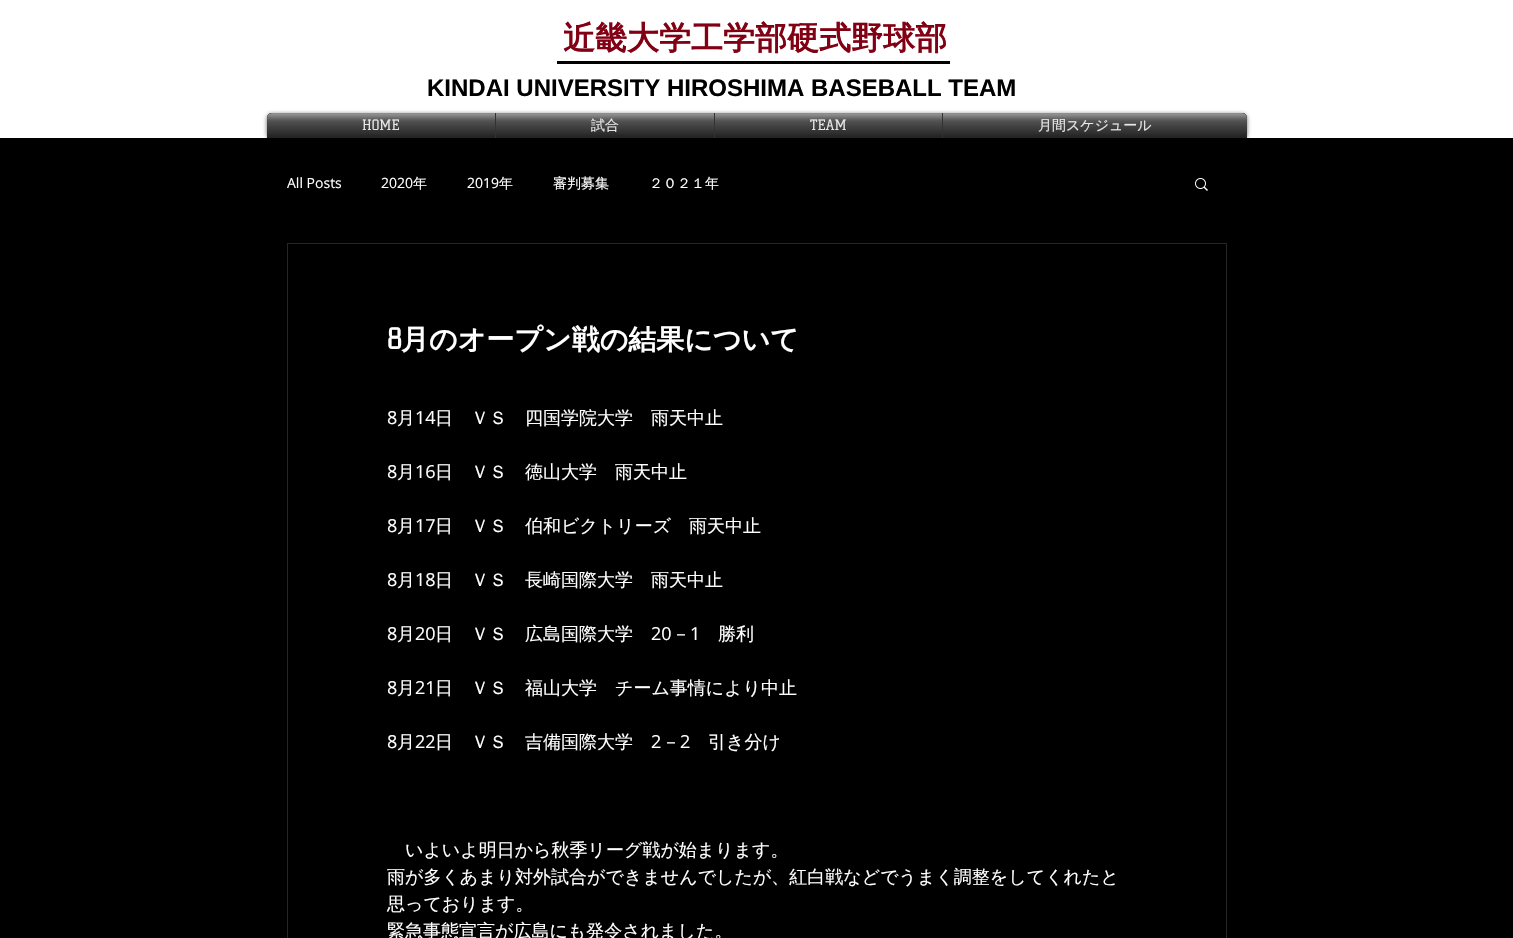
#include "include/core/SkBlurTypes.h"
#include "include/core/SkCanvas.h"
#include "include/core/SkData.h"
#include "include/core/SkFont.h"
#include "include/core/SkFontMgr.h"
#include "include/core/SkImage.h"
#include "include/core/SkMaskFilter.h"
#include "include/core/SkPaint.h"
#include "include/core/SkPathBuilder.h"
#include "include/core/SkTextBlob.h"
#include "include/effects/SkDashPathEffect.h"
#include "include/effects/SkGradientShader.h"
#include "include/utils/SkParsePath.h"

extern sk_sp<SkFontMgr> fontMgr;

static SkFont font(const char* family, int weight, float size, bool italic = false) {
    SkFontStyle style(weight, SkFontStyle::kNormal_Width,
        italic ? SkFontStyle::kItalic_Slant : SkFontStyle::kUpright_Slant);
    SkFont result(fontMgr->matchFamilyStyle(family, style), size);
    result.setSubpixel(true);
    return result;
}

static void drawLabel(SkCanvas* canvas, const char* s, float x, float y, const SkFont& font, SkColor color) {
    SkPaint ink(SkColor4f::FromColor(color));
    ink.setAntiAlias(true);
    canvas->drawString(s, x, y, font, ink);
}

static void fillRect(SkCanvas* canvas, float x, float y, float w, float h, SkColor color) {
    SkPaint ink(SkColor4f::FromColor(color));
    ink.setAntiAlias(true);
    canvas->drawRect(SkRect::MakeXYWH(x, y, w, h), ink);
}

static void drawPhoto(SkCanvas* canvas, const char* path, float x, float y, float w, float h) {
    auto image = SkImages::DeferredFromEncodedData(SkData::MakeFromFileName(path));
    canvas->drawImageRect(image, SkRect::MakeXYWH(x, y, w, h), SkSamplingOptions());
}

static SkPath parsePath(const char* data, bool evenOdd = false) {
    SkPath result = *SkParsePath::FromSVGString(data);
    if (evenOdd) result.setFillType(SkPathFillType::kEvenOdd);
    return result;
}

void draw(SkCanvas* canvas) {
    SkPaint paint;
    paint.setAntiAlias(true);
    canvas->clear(0xFF000000);
    fillRect(canvas, 0, 0, 1513, 138, 0xFFFFFFFF);
    SkFont font1 = font("WenQuanYi Zen Hei", 700, 32);
    drawLabel(canvas, "近畿大学工学部硬式野球部", 563, 49, font1, 0xFF820013);
    fillRect(canvas, 557, 61, 393, 3, 0xFF000000);
    SkFont font2 = font("Liberation Sans", 700, 24);
    drawLabel(canvas, "KINDAI UNIVERSITY HIROSHIMA BASEBALL TEAM", 427, 96, font2, 0xFF000000);
    paint.setColor(0x99000000);
    paint.setMaskFilter(SkMaskFilter::MakeBlur(kNormal_SkBlurStyle, 2));
    canvas->drawRoundRect(SkRect::MakeXYWH(267, 114, 980, 25), 5, 5, paint);
    paint.setMaskFilter(nullptr);
    drawPhoto(canvas, "assets/img1.png", 267, 113, 980, 5);
    drawPhoto(canvas, "assets/img2.png", 267, 113, 980, 5);
    paint.setColor(0xFF000000);
    canvas->drawPath(parsePath("M272 113H495V138H267V118C267 115 269 113 272 113Z"), paint);
    SkFont font3 = font("Kelly Slab", 400, 14);
    drawLabel(canvas, "HOME", 362, 130, font3, 0xFFFFFFFF);
    drawPhoto(canvas, "assets/img3.png", 267, 113, 228, 25);
    drawPhoto(canvas, "assets/img4.png", 267, 113, 228, 25);
    fillRect(canvas, 496, 113, 218, 25, 0xFF000000);
    fillRect(canvas, 495, 113, 1, 25, 0xFF333333);
    SkFont font4 = font("WenQuanYi Zen Hei", 500, 14);
    drawLabel(canvas, "試合", 591, 130, font4, 0xFFFFFFFF);
    drawPhoto(canvas, "assets/img5.png", 496, 113, 218, 25);
    drawPhoto(canvas, "assets/img6.png", 496, 113, 218, 25);
    fillRect(canvas, 715, 113, 227, 25, 0xFF000000);
    fillRect(canvas, 714, 113, 1, 25, 0xFF333333);
    drawLabel(canvas, "TEAM", 810, 130, font3, 0xFFFFFFFF);
    drawPhoto(canvas, "assets/img7.png", 715, 113, 227, 25);
    drawPhoto(canvas, "assets/img8.png", 715, 113, 227, 25);
    canvas->drawPath(parsePath("M942 113H1242C1245 113 1247 115 1247 118V138H942Z"), paint);
    fillRect(canvas, 942, 113, 1, 25, 0xFF333333);
    drawLabel(canvas, "月間スケジュール", 1038, 130, font4, 0xFFFFFFFF);
    drawPhoto(canvas, "assets/img9.png", 943, 113, 304, 25);
    drawPhoto(canvas, "assets/img10.png", 943, 113, 304, 25);
    SkFont font5 = font("Open Sans", 400, 14);
    drawLabel(canvas, "All Posts", 287, 188, font5, 0xFFFFFFFF);
    drawLabel(canvas, "2020", 381, 188, font5, 0xFFFFFFFF);
    drawLabel(canvas, "年", 413, 188, font4, 0xFFFFFFFF);
    drawLabel(canvas, "2019", 467, 188, font5, 0xFFFFFFFF);
    drawLabel(canvas, "年", 499, 188, font4, 0xFFFFFFFF);
    drawLabel(canvas, "審判募集", 553, 188, font4, 0xFFFFFFFF);
    drawLabel(canvas, "２０２１年", 649, 188, font4, 0xFFFFFFFF);
    drawPhoto(canvas, "assets/img11.png", 1195, 178, 13, 13);
    paint.setStroke(true);
    paint.setStrokeWidth(1);
    paint.setColor(0xFF262626);
    canvas->drawRect(SkRect::MakeXYWH(287.5f, 243.5f, 939, 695), paint);
    SkFont font6 = font("Kelly Slab", 700, 28);
    drawLabel(canvas, "8", 387, 349, font6, 0xFFFFFFFF);
    SkFont font7 = font("WenQuanYi Zen Hei", 700, 28);
    drawLabel(canvas, "月のオープン戦の結果について", 401, 349, font7, 0xFFFFFFFF);
    SkFont font8 = font("Open Sans", 400, 18);
    drawLabel(canvas, "8", 387, 424, font8, 0xFFFFFFFF);
    SkFont font9 = font("WenQuanYi Zen Hei", 500, 18);
    drawLabel(canvas, "月", 397, 424, font9, 0xFFFFFFFF);
    drawLabel(canvas, "14", 415, 424, font8, 0xFFFFFFFF);
    drawLabel(canvas, "日　ＶＳ　四国学院大学　雨天中止", 435, 424, font9, 0xFFFFFFFF);
    drawLabel(canvas, "8", 387, 478, font8, 0xFFFFFFFF);
    drawLabel(canvas, "月", 397, 478, font9, 0xFFFFFFFF);
    drawLabel(canvas, "16", 415, 478, font8, 0xFFFFFFFF);
    drawLabel(canvas, "日　ＶＳ　徳山大学　雨天中止", 435, 478, font9, 0xFFFFFFFF);
    drawLabel(canvas, "8", 387, 532, font8, 0xFFFFFFFF);
    drawLabel(canvas, "月", 397, 532, font9, 0xFFFFFFFF);
    drawLabel(canvas, "17", 415, 532, font8, 0xFFFFFFFF);
    drawLabel(canvas, "日　ＶＳ　伯和ビクトリーズ　雨天中止", 435, 532, font9, 0xFFFFFFFF);
    drawLabel(canvas, "8", 387, 586, font8, 0xFFFFFFFF);
    drawLabel(canvas, "月", 397, 586, font9, 0xFFFFFFFF);
    drawLabel(canvas, "18", 415, 586, font8, 0xFFFFFFFF);
    drawLabel(canvas, "日　ＶＳ　長崎国際大学　雨天中止", 435, 586, font9, 0xFFFFFFFF);
    drawLabel(canvas, "8", 387, 640, font8, 0xFFFFFFFF);
    drawLabel(canvas, "月", 397, 640, font9, 0xFFFFFFFF);
    drawLabel(canvas, "20", 415, 640, font8, 0xFFFFFFFF);
    drawLabel(canvas, "日　ＶＳ　広島国際大学", 435, 640, font9, 0xFFFFFFFF);
    drawLabel(canvas, "20", 651, 640, font8, 0xFFFFFFFF);
    drawLabel(canvas, "－", 672, 640, font9, 0xFFFFFFFF);
    drawLabel(canvas, "1", 690, 640, font8, 0xFFFFFFFF);
    drawLabel(canvas, "勝利", 718, 640, font9, 0xFFFFFFFF);
    drawLabel(canvas, "8", 387, 694, font8, 0xFFFFFFFF);
    drawLabel(canvas, "月", 397, 694, font9, 0xFFFFFFFF);
    drawLabel(canvas, "21", 415, 694, font8, 0xFFFFFFFF);
    drawLabel(canvas, "日　ＶＳ　福山大学　チーム事情により中止", 435, 694, font9, 0xFFFFFFFF);
    drawLabel(canvas, "8", 387, 748, font8, 0xFFFFFFFF);
    drawLabel(canvas, "月", 397, 748, font9, 0xFFFFFFFF);
    drawLabel(canvas, "22", 415, 748, font8, 0xFFFFFFFF);
    drawLabel(canvas, "日　ＶＳ　吉備国際大学", 435, 748, font9, 0xFFFFFFFF);
    drawLabel(canvas, "2", 651, 748, font8, 0xFFFFFFFF);
    drawLabel(canvas, "－", 662, 748, font9, 0xFFFFFFFF);
    drawLabel(canvas, "2", 680, 748, font8, 0xFFFFFFFF);
    drawLabel(canvas, "引き分け", 708, 748, font9, 0xFFFFFFFF);
    drawLabel(canvas, "いよいよ明日から秋季リーグ戦が始まります。", 405, 856, font9, 0xFFFFFFFF);
    drawLabel(canvas, "雨が多くあまり対外試合ができませんでしたが、紅白戦などでうまく調整をしてくれたと", 387, 883, font9, 0xFFFFFFFF);
    drawLabel(canvas, "思っております。", 387, 910, font9, 0xFFFFFFFF);
    drawLabel(canvas, "緊急事態宣言が広島にも発令されました。", 387, 937, font9, 0xFFFFFFFF);
}
